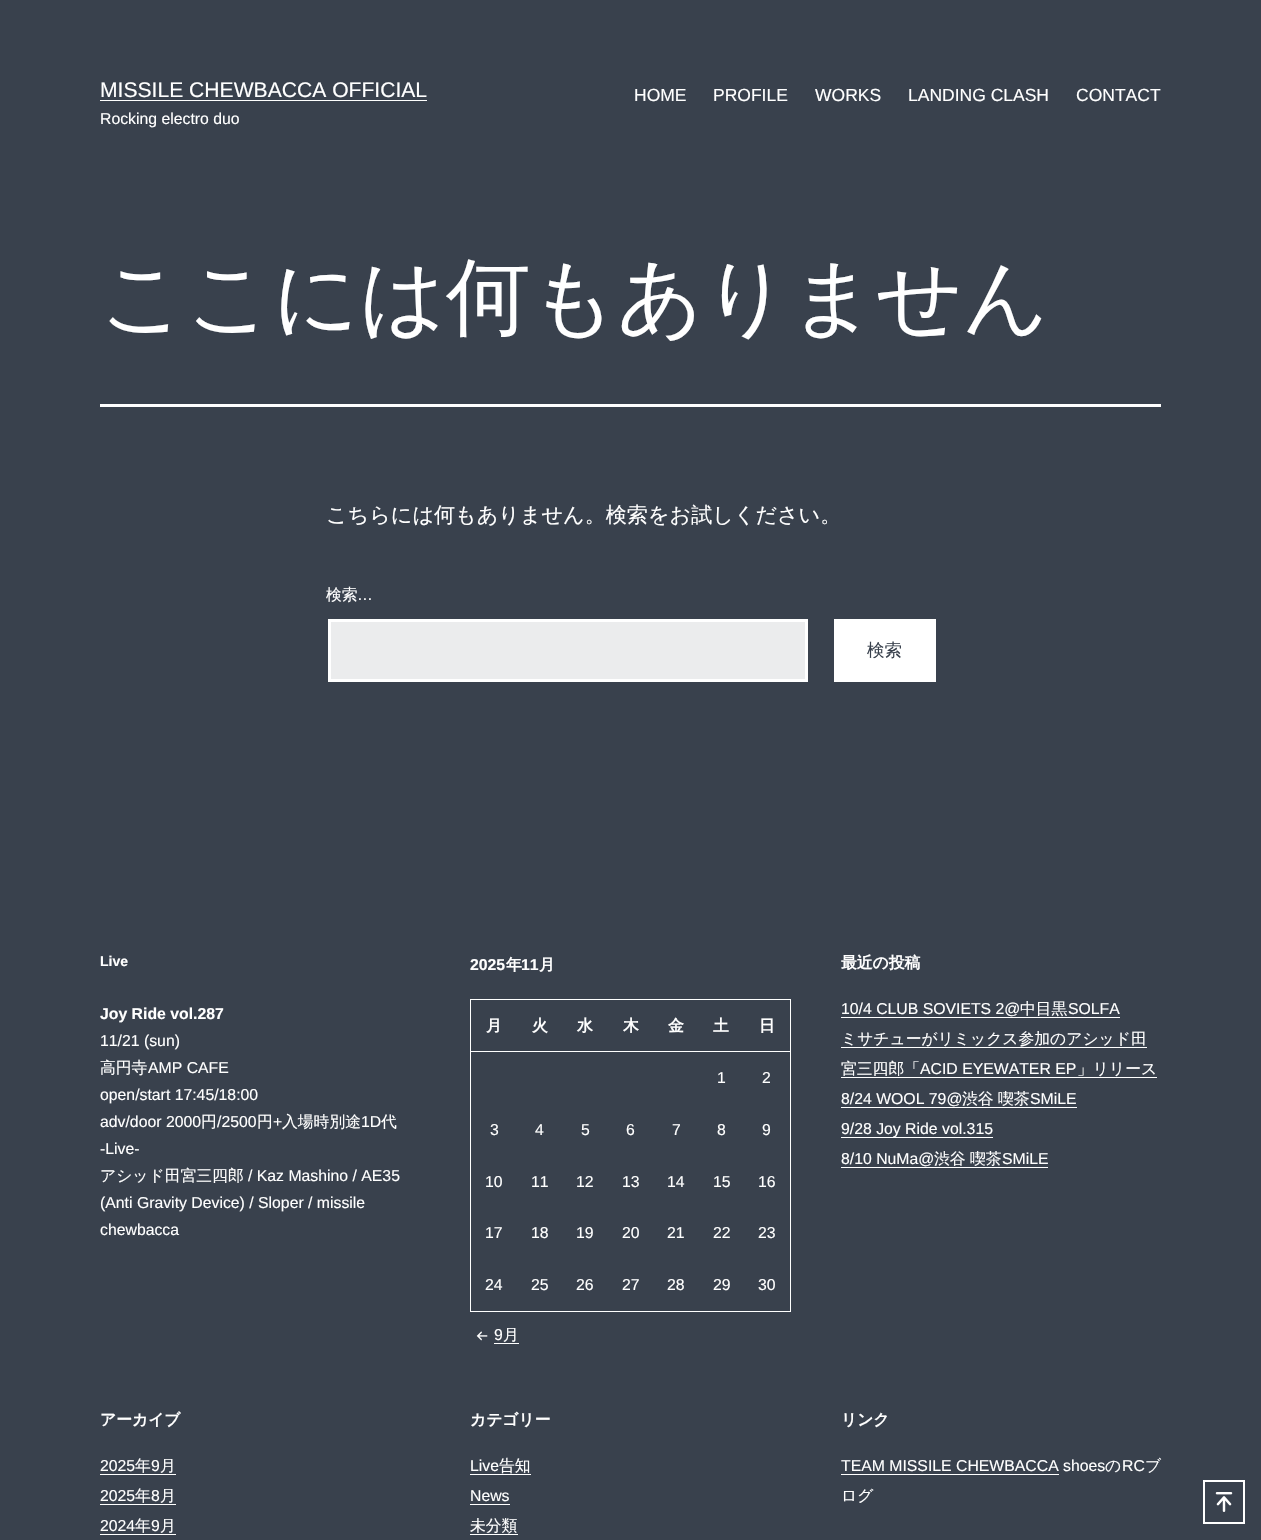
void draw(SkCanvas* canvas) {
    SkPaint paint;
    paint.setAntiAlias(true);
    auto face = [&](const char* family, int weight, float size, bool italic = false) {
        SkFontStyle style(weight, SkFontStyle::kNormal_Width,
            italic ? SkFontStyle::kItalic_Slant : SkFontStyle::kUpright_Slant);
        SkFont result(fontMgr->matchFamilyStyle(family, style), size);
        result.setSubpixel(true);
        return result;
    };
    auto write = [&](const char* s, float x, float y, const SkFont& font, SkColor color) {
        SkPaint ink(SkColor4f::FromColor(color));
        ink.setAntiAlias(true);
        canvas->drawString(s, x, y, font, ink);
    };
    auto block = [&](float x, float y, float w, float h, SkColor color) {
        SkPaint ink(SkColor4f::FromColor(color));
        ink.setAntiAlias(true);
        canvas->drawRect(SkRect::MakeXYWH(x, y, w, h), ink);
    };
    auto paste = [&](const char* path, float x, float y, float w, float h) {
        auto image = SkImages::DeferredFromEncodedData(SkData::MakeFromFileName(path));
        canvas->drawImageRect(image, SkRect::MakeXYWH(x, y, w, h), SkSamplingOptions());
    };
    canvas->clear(SkColorSetRGB(57, 65, 77));
    auto kFont1 = face("Liberation Sans", 400, 21.1f);
    write("MISSILE CHEWBACCA OFFICIAL", 100, 97, kFont1, SK_ColorWHITE);
    block(100, 100, 327, 1, SK_ColorWHITE);
    auto kFont2 = face("Liberation Sans", 400, 15.8f);
    write("Rocking electro duo", 100, 124, kFont2, SK_ColorWHITE);
    auto kFont3 = face("Liberation Sans", 400, 17.5f);
    write("HOME", 634, 101, kFont3, SK_ColorWHITE);
    write("PROFILE", 713, 101, kFont3, SK_ColorWHITE);
    write("WORKS", 815, 101, kFont3, SK_ColorWHITE);
    write("LANDING CLASH", 908, 101, kFont3, SK_ColorWHITE);
    write("CONTACT", 1076, 101, kFont3, SK_ColorWHITE);
    block(100, 404, 1061, 3, SK_ColorWHITE);
    auto kFont4 = face("WenQuanYi Zen Hei", 500, 84.5f);
    write("ここには何もありません", 100, 326, kFont4, SK_ColorWHITE);
    auto kFont5 = face("WenQuanYi Zen Hei", 500, 21.1f);
    write("こちらには何もありません。検索をお試しください。", 326, 522, kFont5, SK_ColorWHITE);
    auto kFont6 = face("WenQuanYi Zen Hei", 500, 15.8f);
    write("検索", 326, 600, kFont6, SK_ColorWHITE);
    write("…", 357, 600, kFont2, SK_ColorWHITE);
    paint.setColor(SkColorSetRGB(235, 236, 237));
    canvas->drawRect(SkRect::MakeXYWH(329.5f, 620.5f, 477, 60), paint);
    paint.setStyle(SkPaint::kStroke_Style);
    paint.setStrokeWidth(3);
    paint.setColor(SK_ColorWHITE);
    canvas->drawRect(SkRect::MakeXYWH(329.5f, 620.5f, 477, 60), paint);
    block(834, 619, 102, 63, SK_ColorWHITE);
    auto kFont7 = face("WenQuanYi Zen Hei", 500, 17.5f);
    write("検索", 867, 656, kFont7, SkColorSetRGB(57, 65, 77));
    auto kFont8 = face("Liberation Sans", 700, 14);
    write("Live", 100, 966, kFont8, SK_ColorWHITE);
    auto kFont9 = face("Liberation Sans", 700, 15.8f);
    write("Joy Ride vol.287", 100, 1019, kFont9, SK_ColorWHITE);
    write("11/21 (sun)", 100, 1046, kFont2, SK_ColorWHITE);
    write("高円寺", 100, 1073, kFont6, SK_ColorWHITE);
    write("AMP CAFE", 148, 1073, kFont2, SK_ColorWHITE);
    write("open/start 17:45/18:00", 100, 1100, kFont2, SK_ColorWHITE);
    write("adv/door 2000", 100, 1127, kFont2, SK_ColorWHITE);
    write("円", 201, 1127, kFont6, SK_ColorWHITE);
    write("/2500", 217, 1127, kFont2, SK_ColorWHITE);
    write("円", 257, 1127, kFont6, SK_ColorWHITE);
    write("+", 273, 1127, kFont2, SK_ColorWHITE);
    write("入場時別途", 282, 1127, kFont6, SK_ColorWHITE);
    write("1D", 361, 1127, kFont2, SK_ColorWHITE);
    write("代", 381, 1127, kFont6, SK_ColorWHITE);
    write("-Live-", 100, 1154, kFont2, SK_ColorWHITE);
    write("アシッド田宮三四郎", 100, 1181, kFont6, SK_ColorWHITE);
    write("/ Kaz Mashino / AE35", 248, 1181, kFont2, SK_ColorWHITE);
    write("(Anti Gravity Device) / Sloper / missile", 100, 1208, kFont2, SK_ColorWHITE);
    write("chewbacca", 100, 1235, kFont2, SK_ColorWHITE);
    write("2025", 470, 970, kFont9, SK_ColorWHITE);
    auto kFont10 = face("WenQuanYi Zen Hei", 700, 15.8f);
    write("年", 506, 970, kFont10, SK_ColorWHITE);
    write("11", 521, 970, kFont9, SK_ColorWHITE);
    write("月", 539, 970, kFont10, SK_ColorWHITE);
    block(470, 999, 321, 1, SK_ColorWHITE);
    block(470, 1051, 321, 1, SK_ColorWHITE);
    block(790, 1051, 1, 261, SK_ColorWHITE);
    block(790, 999, 1, 53, SK_ColorWHITE);
    block(470, 1311, 321, 1, SK_ColorWHITE);
    block(470, 1051, 1, 261, SK_ColorWHITE);
    block(470, 999, 1, 53, SK_ColorWHITE);
    write("月", 486, 1031, kFont10, SK_ColorWHITE);
    write("火", 532, 1031, kFont10, SK_ColorWHITE);
    write("水", 577, 1031, kFont10, SK_ColorWHITE);
    write("木", 623, 1031, kFont10, SK_ColorWHITE);
    write("金", 668, 1031, kFont10, SK_ColorWHITE);
    write("土", 713, 1031, kFont10, SK_ColorWHITE);
    write("日", 759, 1031, kFont10, SK_ColorWHITE);
    write("1", 717, 1083, kFont2, SK_ColorWHITE);
    write("2", 762, 1083, kFont2, SK_ColorWHITE);
    write("3", 490, 1135, kFont2, SK_ColorWHITE);
    write("4", 535, 1135, kFont2, SK_ColorWHITE);
    write("5", 581, 1135, kFont2, SK_ColorWHITE);
    write("6", 626, 1135, kFont2, SK_ColorWHITE);
    write("7", 672, 1135, kFont2, SK_ColorWHITE);
    write("8", 717, 1135, kFont2, SK_ColorWHITE);
    write("9", 762, 1135, kFont2, SK_ColorWHITE);
    write("10", 485, 1187, kFont2, SK_ColorWHITE);
    write("11", 531, 1187, kFont2, SK_ColorWHITE);
    write("12", 576, 1187, kFont2, SK_ColorWHITE);
    write("13", 622, 1187, kFont2, SK_ColorWHITE);
    write("14", 667, 1187, kFont2, SK_ColorWHITE);
    write("15", 713, 1187, kFont2, SK_ColorWHITE);
    write("16", 758, 1187, kFont2, SK_ColorWHITE);
    write("17", 485, 1238, kFont2, SK_ColorWHITE);
    write("18", 531, 1238, kFont2, SK_ColorWHITE);
    write("19", 576, 1238, kFont2, SK_ColorWHITE);
    write("20", 622, 1238, kFont2, SK_ColorWHITE);
    write("21", 667, 1238, kFont2, SK_ColorWHITE);
    write("22", 713, 1238, kFont2, SK_ColorWHITE);
    write("23", 758, 1238, kFont2, SK_ColorWHITE);
    write("24", 485, 1290, kFont2, SK_ColorWHITE);
    write("25", 531, 1290, kFont2, SK_ColorWHITE);
    write("26", 576, 1290, kFont2, SK_ColorWHITE);
    write("27", 622, 1290, kFont2, SK_ColorWHITE);
    write("28", 667, 1290, kFont2, SK_ColorWHITE);
    write("29", 713, 1290, kFont2, SK_ColorWHITE);
    write("30", 758, 1290, kFont2, SK_ColorWHITE);
    paste("pic1.png", 476, 1331, 12, 10);
    write("9", 494, 1340, kFont2, SK_ColorWHITE);
    block(494, 1343, 25, 1, SK_ColorWHITE);
    write("月", 503, 1340, kFont6, SK_ColorWHITE);
    write("最近の投稿", 841, 968, kFont10, SK_ColorWHITE);
    write("10/4 CLUB SOVIETS 2@", 841, 1014, kFont2, SK_ColorWHITE);
    block(841, 1017, 279, 1, SK_ColorWHITE);
    write("中目黒", 1020, 1014, kFont6, SK_ColorWHITE);
    write("SOLFA", 1068, 1014, kFont2, SK_ColorWHITE);
    write("ミサチューがリミックス参加のアシッド田", 841, 1044, kFont6, SK_ColorWHITE);
    block(841, 1047, 306, 1, SK_ColorWHITE);
    write("宮三四郎「", 841, 1074, kFont6, SK_ColorWHITE);
    write("ACID EYEWATER EP", 920, 1074, kFont2, SK_ColorWHITE);
    write("」リリース", 1077, 1074, kFont6, SK_ColorWHITE);
    block(841, 1077, 316, 1, SK_ColorWHITE);
    write("8/24 WOOL 79@", 841, 1104, kFont2, SK_ColorWHITE);
    block(841, 1107, 236, 1, SK_ColorWHITE);
    write("渋谷", 962, 1104, kFont6, SK_ColorWHITE);
    write("喫茶", 998, 1104, kFont6, SK_ColorWHITE);
    write("SMiLE", 1030, 1104, kFont2, SK_ColorWHITE);
    block(841, 1137, 152, 1, SK_ColorWHITE);
    write("9/28 Joy Ride vol.315", 841, 1134, kFont2, SK_ColorWHITE);
    write("8/10 NuMa@", 841, 1164, kFont2, SK_ColorWHITE);
    block(841, 1167, 207, 1, SK_ColorWHITE);
    write("渋谷", 934, 1164, kFont6, SK_ColorWHITE);
    write("喫茶", 970, 1164, kFont6, SK_ColorWHITE);
    write("SMiLE", 1002, 1164, kFont2, SK_ColorWHITE);
    write("アーカイブ", 100, 1425, kFont10, SK_ColorWHITE);
    write("2025", 100, 1471, kFont2, SK_ColorWHITE);
    block(100, 1474, 76, 1, SK_ColorWHITE);
    write("年", 135, 1471, kFont6, SK_ColorWHITE);
    write("9", 151, 1471, kFont2, SK_ColorWHITE);
    write("月", 160, 1471, kFont6, SK_ColorWHITE);
    write("2025", 100, 1501, kFont2, SK_ColorWHITE);
    block(100, 1504, 76, 1, SK_ColorWHITE);
    write("年", 135, 1501, kFont6, SK_ColorWHITE);
    write("8", 151, 1501, kFont2, SK_ColorWHITE);
    write("月", 160, 1501, kFont6, SK_ColorWHITE);
    write("2024", 100, 1531, kFont2, SK_ColorWHITE);
    block(100, 1534, 76, 1, SK_ColorWHITE);
    write("年", 135, 1531, kFont6, SK_ColorWHITE);
    write("9", 151, 1531, kFont2, SK_ColorWHITE);
    write("月", 160, 1531, kFont6, SK_ColorWHITE);
    write("カテゴリー", 470, 1425, kFont10, SK_ColorWHITE);
    write("Live", 470, 1471, kFont2, SK_ColorWHITE);
    block(470, 1474, 61, 1, SK_ColorWHITE);
    write("告知", 499, 1471, kFont6, SK_ColorWHITE);
    write("News", 470, 1501, kFont2, SK_ColorWHITE);
    block(470, 1504, 40, 1, SK_ColorWHITE);
    write("未分類", 470, 1531, kFont6, SK_ColorWHITE);
    block(470, 1534, 48, 1, SK_ColorWHITE);
    write("リンク", 841, 1425, kFont10, SK_ColorWHITE);
    write("TEAM MISSILE CHEWBACCA shoes", 841, 1471, kFont2, SK_ColorWHITE);
    block(841, 1474, 218, 1, SK_ColorWHITE);
    write("の", 1105, 1471, kFont6, SK_ColorWHITE);
    write("RC", 1122, 1471, kFont2, SK_ColorWHITE);
    write("ブ", 1145, 1471, kFont6, SK_ColorWHITE);
    write("ログ", 841, 1501, kFont6, SK_ColorWHITE);
    paint.setStrokeWidth(2);
    canvas->drawRect(SkRect::MakeXYWH(1204, 1481, 40, 42), paint);
    paste("pic2.png", 1215, 1492, 18, 20);
}
